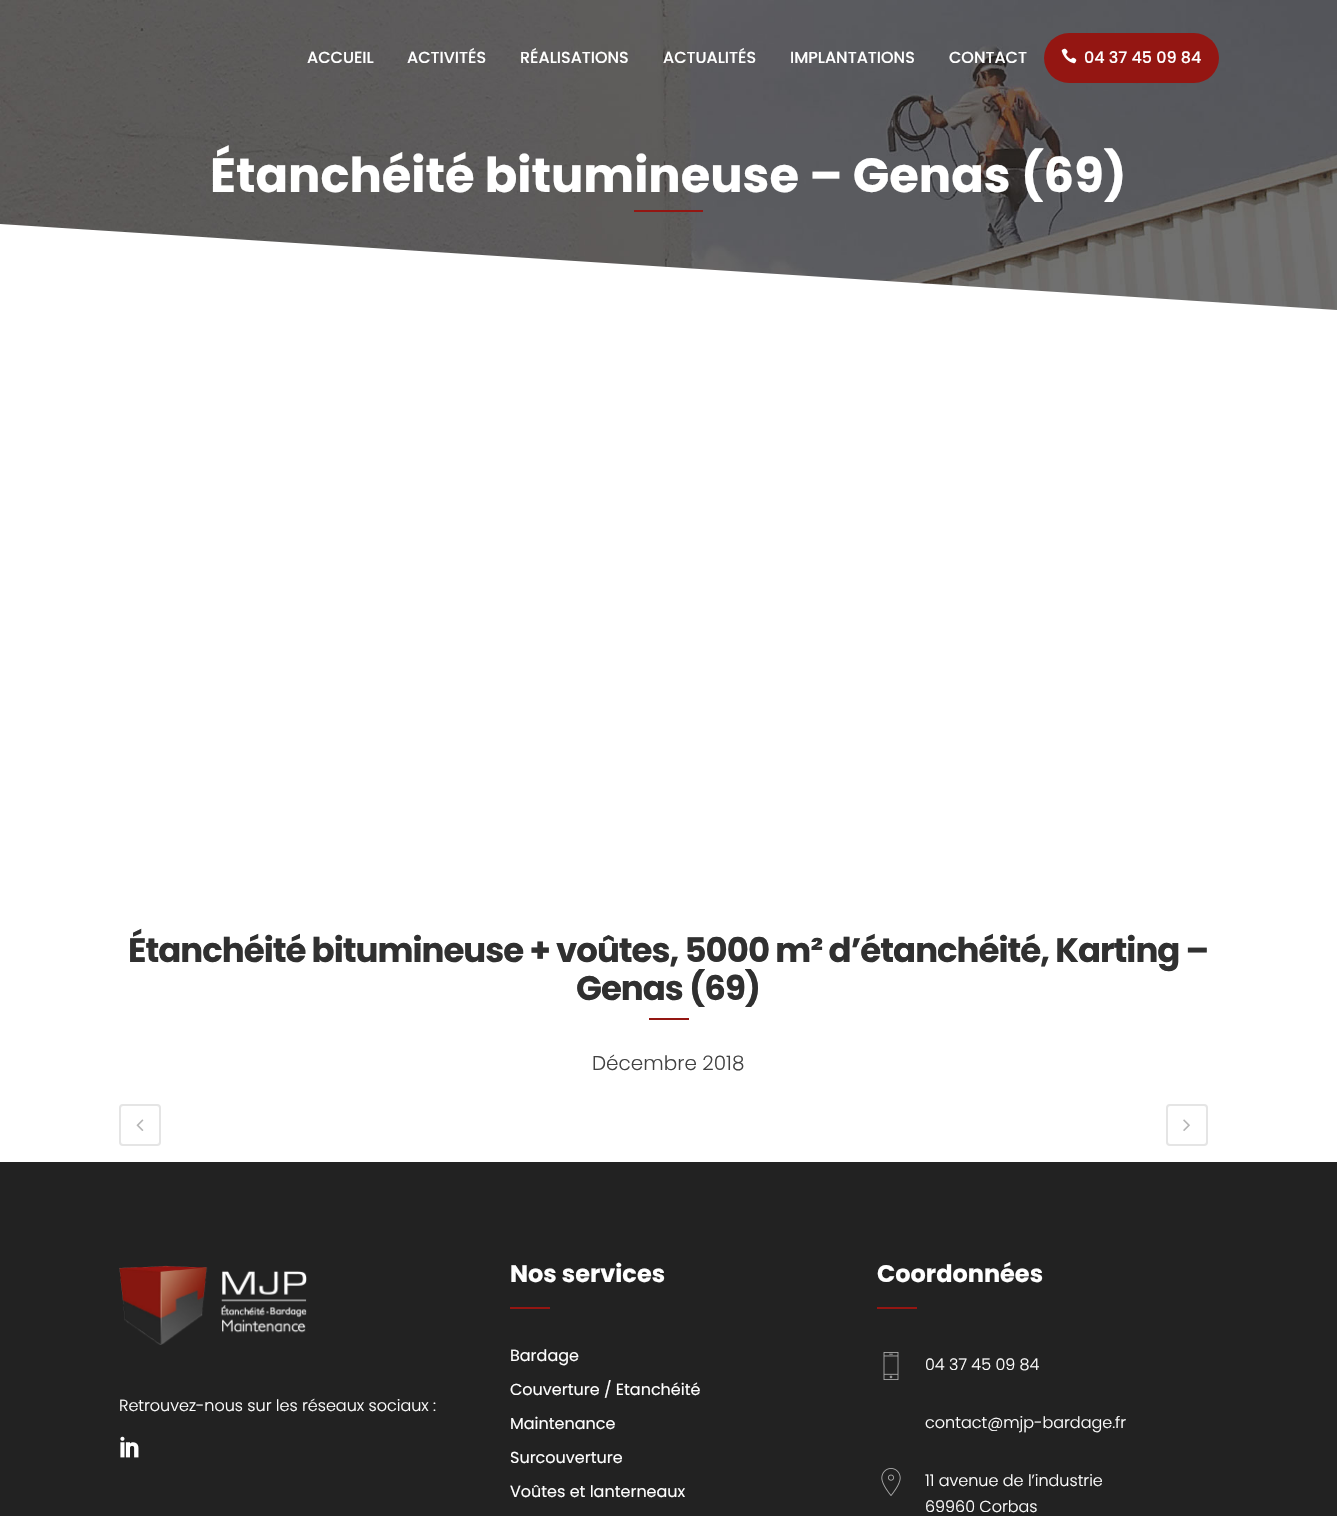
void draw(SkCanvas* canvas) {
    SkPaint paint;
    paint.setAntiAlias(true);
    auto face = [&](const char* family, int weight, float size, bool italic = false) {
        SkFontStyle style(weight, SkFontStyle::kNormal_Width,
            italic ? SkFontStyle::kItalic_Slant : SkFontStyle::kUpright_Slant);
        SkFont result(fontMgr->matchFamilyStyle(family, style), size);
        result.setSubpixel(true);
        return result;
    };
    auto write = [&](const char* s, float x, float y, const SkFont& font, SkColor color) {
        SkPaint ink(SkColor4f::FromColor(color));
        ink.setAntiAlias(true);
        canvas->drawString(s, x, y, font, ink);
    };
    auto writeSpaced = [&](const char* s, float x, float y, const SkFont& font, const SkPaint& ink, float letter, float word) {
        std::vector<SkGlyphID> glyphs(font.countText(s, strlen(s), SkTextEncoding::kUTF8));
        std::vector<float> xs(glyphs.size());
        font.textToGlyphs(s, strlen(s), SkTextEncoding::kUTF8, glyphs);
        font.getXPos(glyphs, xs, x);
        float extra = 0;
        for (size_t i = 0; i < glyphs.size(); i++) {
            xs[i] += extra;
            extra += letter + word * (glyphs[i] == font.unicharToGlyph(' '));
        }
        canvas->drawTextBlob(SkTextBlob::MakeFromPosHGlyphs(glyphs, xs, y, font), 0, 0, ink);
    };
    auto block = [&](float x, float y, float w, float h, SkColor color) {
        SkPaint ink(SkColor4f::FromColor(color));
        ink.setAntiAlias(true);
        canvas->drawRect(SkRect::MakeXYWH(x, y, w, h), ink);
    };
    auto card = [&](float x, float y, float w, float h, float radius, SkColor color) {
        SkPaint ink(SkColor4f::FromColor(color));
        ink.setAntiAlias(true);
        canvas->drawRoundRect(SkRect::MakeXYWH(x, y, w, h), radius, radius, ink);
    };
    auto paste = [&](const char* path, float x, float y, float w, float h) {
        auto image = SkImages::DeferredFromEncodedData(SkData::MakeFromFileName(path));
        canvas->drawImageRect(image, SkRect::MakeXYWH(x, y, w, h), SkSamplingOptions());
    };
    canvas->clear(SK_ColorWHITE);
    paste("pic2.png", 0, 0, 1337, 310);
    auto kFont1 = face("Poppins", 500, 16);
    write("ACCUEIL", 307, 63, kFont1, SK_ColorWHITE);
    write("ACTIVITÉS", 407, 63, kFont1, SK_ColorWHITE);
    write("RÉALISATIONS", 520, 63, kFont1, SK_ColorWHITE);
    write("ACTUALITÉS", 663, 63, kFont1, SK_ColorWHITE);
    write("IMPLANTATIONS", 790, 63, kFont1, SK_ColorWHITE);
    write("CONTACT", 949, 63, kFont1, SK_ColorWHITE);
    card(1044, 33, 175, 50, 25, SkColorSetRGB(148, 22, 18));
    paste("pic1.png", 1061, 48, 16, 16);
    write("04 37 45 09 84", 1084, 63, kFont1, SK_ColorWHITE);
    auto kFont2 = face("Poppins", 700, 48);
    write("Étanchéité bitumineuse – Genas (69)", 210, 192, kFont2, SK_ColorWHITE);
    block(634, 210, 69, 2, SkColorSetRGB(148, 22, 18));
    paint.setColor(SK_ColorWHITE);
    canvas->drawPath(SkPathBuilder().moveTo(0, 224).lineTo(0, 310).lineTo(1337, 310).close().detach(), paint);
    auto kFont3 = face("Poppins", 700, 34);
    paint.setColor(SkColorSetRGB(48, 48, 48));
    writeSpaced("Étanchéité bitumineuse + voûtes, 5000 m² d’étanchéité, Karting –", 128, 962, kFont3, paint, -1, 0);
    writeSpaced("Genas (69)", 576, 1000, kFont3, paint, -1, 0);
    block(649, 1018, 40, 2, SkColorSetRGB(148, 22, 18));
    auto kFont4 = face("Poppins", 300, 20);
    write("Décembre 2018", 592, 1070, kFont4, SkColorSetRGB(66, 66, 66));
    paint.setStyle(SkPaint::kStroke_Style);
    paint.setStrokeWidth(2);
    paint.setColor(SkColorSetRGB(229, 229, 229));
    canvas->drawRoundRect(SkRect::MakeXYWH(120, 1105, 40, 40), 3, 3, paint);
    paste("pic3.png", 136, 1119, 8, 12);
    canvas->drawRoundRect(SkRect::MakeXYWH(1167, 1105, 40, 40), 3, 3, paint);
    paste("pic4.png", 1183, 1119, 7, 12);
    block(0, 1162, 1337, 354, SkColorSetRGB(34, 34, 34));
    paste("pic5.png", 119, 1265, 188, 80);
    auto kFont5 = face("Poppins", 300, 16);
    write("Retrouvez-nous sur les réseaux sociaux :", 119, 1411, kFont5, SK_ColorWHITE);
    paste("pic6.png", 120, 1436, 19, 22);
    auto kFont6 = face("Poppins", 700, 24);
    write("Nos services", 510, 1282, kFont6, SK_ColorWHITE);
    block(510, 1307, 40, 2, SkColorSetRGB(148, 22, 18));
    auto kFont7 = face("Poppins", 400, 16);
    write("Bardage", 510, 1361, kFont7, SK_ColorWHITE);
    write("Couverture / Etanchéité", 510, 1395, kFont7, SK_ColorWHITE);
    write("Maintenance", 510, 1429, kFont7, SK_ColorWHITE);
    write("Surcouverture", 510, 1463, kFont7, SK_ColorWHITE);
    write("Voûtes et lanterneaux", 510, 1497, kFont7, SK_ColorWHITE);
    write("Coordonnées", 877, 1282, kFont6, SK_ColorWHITE);
    block(877, 1307, 40, 2, SkColorSetRGB(148, 22, 18));
    paste("pic7.png", 883, 1352, 16, 28);
    write("04 37 45 09 84", 925, 1370, kFont5, SK_ColorWHITE);
    write("contact@mjp-bardage.fr", 925, 1428, kFont5, SK_ColorWHITE);
    paste("pic8.png", 881, 1468, 20, 28);
    write("11 avenue de l’industrie", 925, 1486, kFont5, SK_ColorWHITE);
    write("69960 Corbas", 925, 1512, kFont5, SK_ColorWHITE);
}
